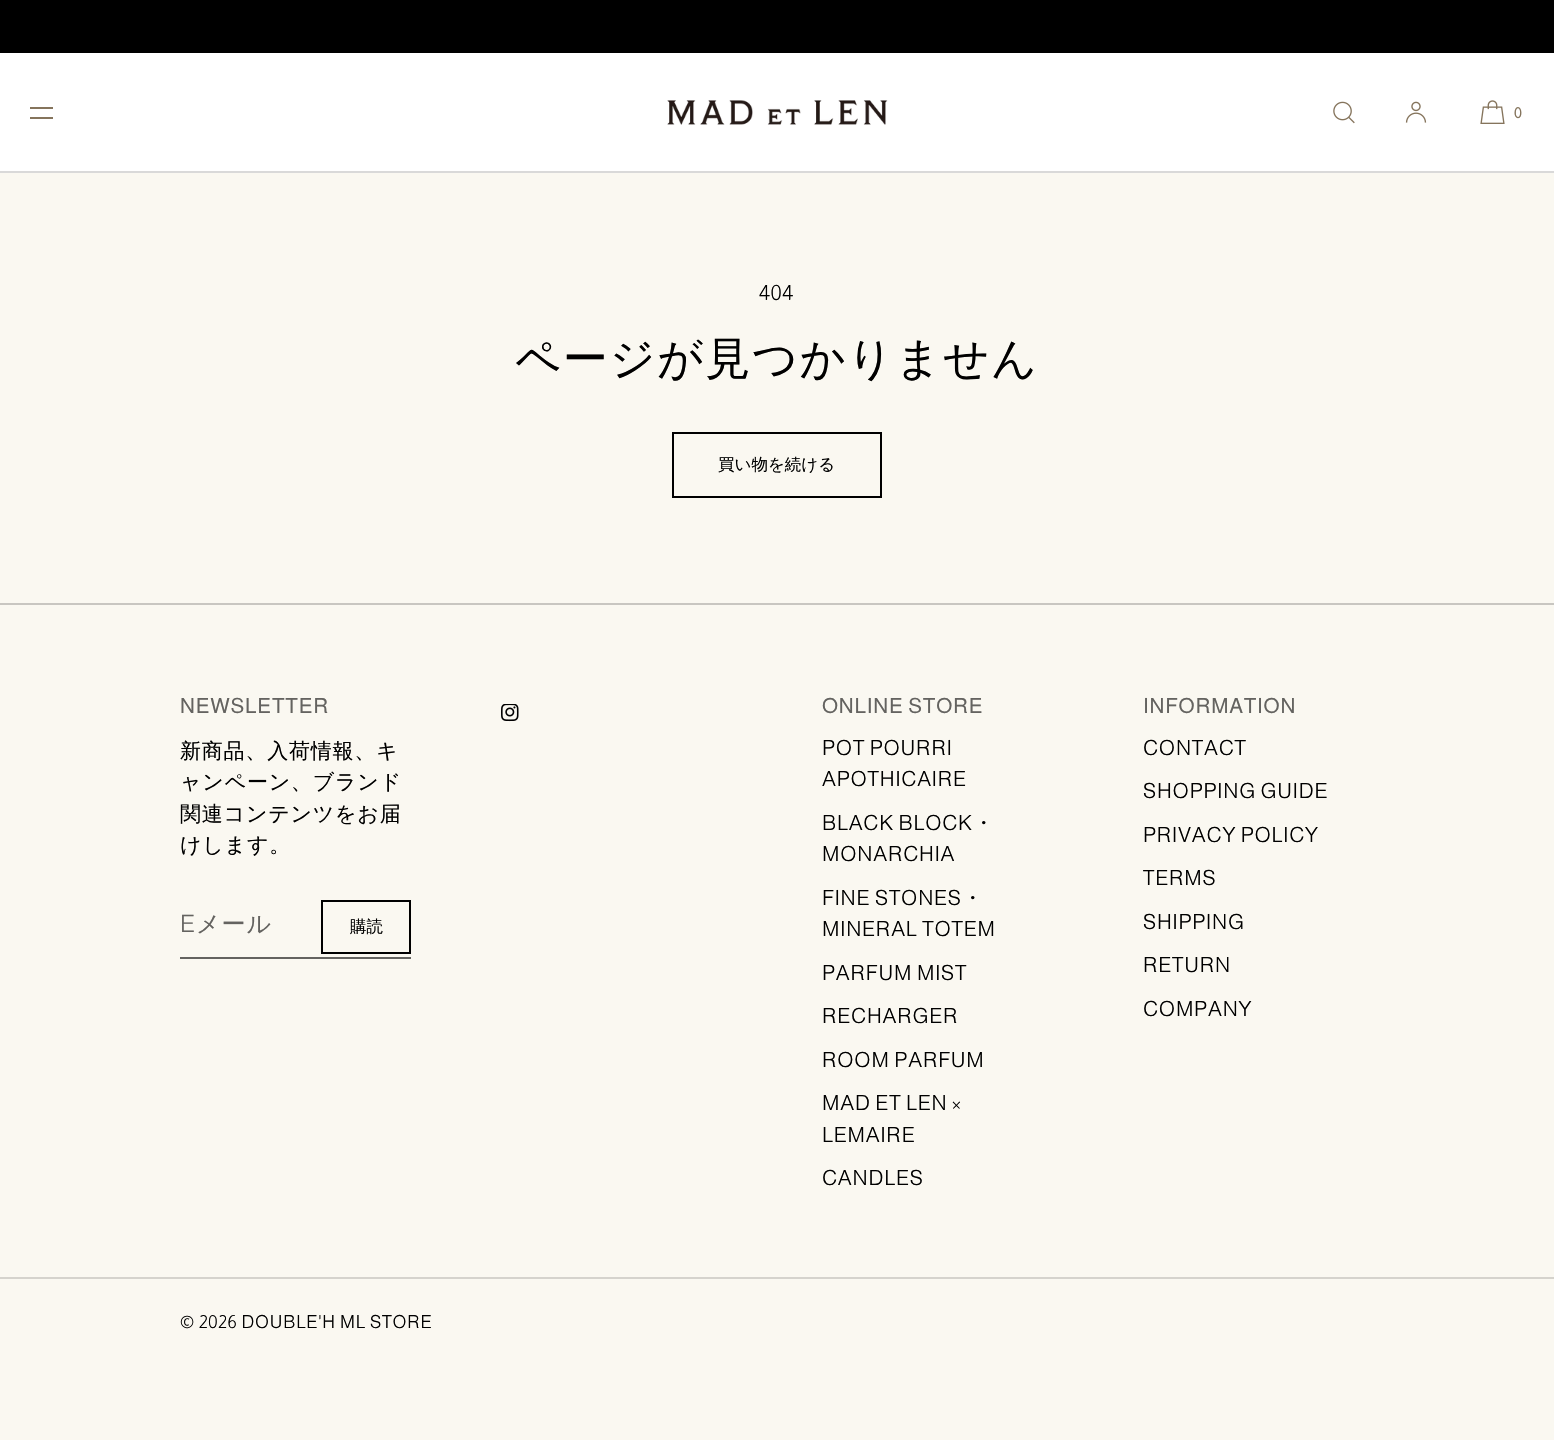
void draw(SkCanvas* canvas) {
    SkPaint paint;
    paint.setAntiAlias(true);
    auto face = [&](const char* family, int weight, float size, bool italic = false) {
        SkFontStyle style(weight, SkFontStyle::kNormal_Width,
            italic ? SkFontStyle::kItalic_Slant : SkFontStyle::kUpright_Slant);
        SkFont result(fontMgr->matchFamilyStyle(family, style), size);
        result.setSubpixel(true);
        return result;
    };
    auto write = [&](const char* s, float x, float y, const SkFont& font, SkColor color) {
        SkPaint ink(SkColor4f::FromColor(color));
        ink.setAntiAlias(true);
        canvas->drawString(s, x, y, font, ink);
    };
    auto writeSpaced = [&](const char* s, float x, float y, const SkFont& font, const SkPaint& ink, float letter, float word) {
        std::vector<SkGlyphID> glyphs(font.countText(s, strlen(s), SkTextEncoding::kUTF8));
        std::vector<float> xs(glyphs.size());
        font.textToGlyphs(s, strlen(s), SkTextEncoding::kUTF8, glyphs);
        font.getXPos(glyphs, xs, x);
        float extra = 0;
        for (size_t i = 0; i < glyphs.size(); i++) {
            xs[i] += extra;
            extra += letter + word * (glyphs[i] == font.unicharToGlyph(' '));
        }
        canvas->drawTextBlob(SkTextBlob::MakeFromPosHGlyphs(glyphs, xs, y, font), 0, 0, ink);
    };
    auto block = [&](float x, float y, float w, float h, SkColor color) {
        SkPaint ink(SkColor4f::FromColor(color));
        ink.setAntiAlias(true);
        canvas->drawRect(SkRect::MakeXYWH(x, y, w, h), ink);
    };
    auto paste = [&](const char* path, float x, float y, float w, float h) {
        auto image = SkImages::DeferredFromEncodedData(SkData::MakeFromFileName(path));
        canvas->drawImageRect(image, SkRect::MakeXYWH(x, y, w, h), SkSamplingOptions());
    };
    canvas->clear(SkColorSetRGB(250, 248, 241));
    block(0, 0, 1554, 53, SK_ColorBLACK);
    block(0, 53, 1554, 118, SK_ColorWHITE);
    block(0, 171, 1554, 2, SkColorSetRGB(217, 217, 217));
    block(30, 107, 23, 2, SkColorSetRGB(133, 116, 92));
    block(30, 117, 23, 2, SkColorSetRGB(133, 116, 92));
    paste("pic1.png", 667, 100, 221, 25);
    paste("pic2.png", 1333, 101, 22, 23);
    paste("pic3.png", 1405, 101, 22, 22);
    paste("pic4.png", 1480, 100, 25, 24);
    auto kFont1 = face("Almarai", 400, 15);
    paint.setColor(SkColorSetRGB(133, 116, 92));
    writeSpaced("0", 1514, 118, kFont1, paint, 0.8f, 0);
    auto kFont2 = face("Almarai", 300, 21);
    paint.setColor(SK_ColorBLACK);
    writeSpaced("404", 759, 300, kFont2, paint, 0.8f, 0);
    auto kFont3 = face("WenQuanYi Zen Hei", 500, 45);
    writeSpaced("ページが見つかりません", 515, 374, kFont3, paint, 1.75f, 0);
    paint.setStyle(SkPaint::kStroke_Style);
    paint.setStrokeWidth(2);
    canvas->drawRect(SkRect::MakeXYWH(673, 433, 208, 64), paint);
    auto kFont4 = face("WenQuanYi Zen Hei", 500, 16.5f);
    write("買い物を続ける", 718, 470, kFont4, SK_ColorBLACK);
    block(0, 603, 1554, 2, SkColorSetRGB(200, 198, 193));
    auto kFont5 = face("Almarai", 400, 21);
    paint.setStyle(SkPaint::kFill_Style);
    paint.setColor(SkColorSetRGB(100, 99, 96));
    writeSpaced("NEWSLETTER", 180, 713, kFont5, paint, 0.8f, 0);
    auto kFont6 = face("WenQuanYi Zen Hei", 500, 21);
    paint.setColor(SK_ColorBLACK);
    writeSpaced("新商品、入荷情報、キ", 180, 758, kFont6, paint, 0.8f, 0);
    writeSpaced("ャンペーン、ブランド", 180, 789, kFont6, paint, 0.8f, 0);
    writeSpaced("関連コンテンツをお届", 180, 821, kFont6, paint, 0.8f, 0);
    writeSpaced("けします。", 180, 852, kFont6, paint, 0.8f, 0);
    block(180, 957, 231, 2, SkColorSetRGB(100, 99, 96));
    auto kFont7 = face("Almarai", 300, 24);
    paint.setColor(SkColorSetRGB(100, 99, 96));
    writeSpaced("E", 180, 932, kFont7, paint, 1, 0);
    auto kFont8 = face("WenQuanYi Zen Hei", 500, 24);
    writeSpaced("メール", 196, 932, kFont8, paint, 1, 0);
    paint.setStyle(SkPaint::kStroke_Style);
    paint.setColor(SK_ColorBLACK);
    canvas->drawRect(SkRect::MakeXYWH(322, 901, 88, 52), paint);
    write("購読", 350, 932, kFont4, SK_ColorBLACK);
    paste("pic5.png", 501, 704, 18, 18);
    paint.setStyle(SkPaint::kFill_Style);
    paint.setColor(SkColorSetRGB(100, 99, 96));
    writeSpaced("ONLINE STORE", 822, 713, kFont5, paint, 0.8f, 0);
    paint.setColor(SK_ColorBLACK);
    writeSpaced("POT POURRI", 822, 755, kFont2, paint, 0.8f, 0);
    writeSpaced("APOTHICAIRE", 822, 786, kFont2, paint, 0.8f, 0);
    writeSpaced("BLACK BLOCK", 822, 830, kFont2, paint, 0.8f, 0);
    writeSpaced("・", 973, 830, kFont6, paint, 0.8f, 0);
    writeSpaced("MONARCHIA", 822, 861, kFont2, paint, 0.8f, 0);
    writeSpaced("FINE STONES", 822, 905, kFont2, paint, 0.8f, 0);
    writeSpaced("・", 962, 905, kFont6, paint, 0.8f, 0);
    writeSpaced("MINERAL TOTEM", 822, 936, kFont2, paint, 0.8f, 0);
    writeSpaced("PARFUM MIST", 822, 980, kFont2, paint, 0.8f, 0);
    writeSpaced("RECHARGER", 822, 1023, kFont2, paint, 0.8f, 0);
    writeSpaced("ROOM PARFUM", 822, 1067, kFont2, paint, 0.8f, 0);
    writeSpaced("MAD ET LEN ×", 822, 1110, kFont2, paint, 0.8f, 0);
    writeSpaced("LEMAIRE", 822, 1142, kFont2, paint, 0.8f, 0);
    writeSpaced("CANDLES", 822, 1185, kFont2, paint, 0.8f, 0);
    paint.setColor(SkColorSetRGB(100, 99, 96));
    writeSpaced("INFORMATION", 1143, 713, kFont5, paint, 0.8f, 0);
    paint.setColor(SK_ColorBLACK);
    writeSpaced("CONTACT", 1143, 755, kFont2, paint, 0.8f, 0);
    writeSpaced("SHOPPING GUIDE", 1143, 798, kFont2, paint, 0.8f, 0);
    writeSpaced("PRIVACY POLICY", 1143, 842, kFont2, paint, 0.8f, 0);
    writeSpaced("TERMS", 1143, 885, kFont2, paint, 0.8f, 0);
    writeSpaced("SHIPPING", 1143, 929, kFont2, paint, 0.8f, 0);
    writeSpaced("RETURN", 1143, 972, kFont2, paint, 0.8f, 0);
    writeSpaced("COMPANY", 1143, 1016, kFont2, paint, 0.8f, 0);
    block(0, 1277, 1554, 2, SkColorSetRGB(213, 211, 205));
    auto kFont9 = face("Almarai", 300, 18);
    writeSpaced("© 2026 DOUBLE'H ML STORE", 180, 1328, kFont9, paint, 0.8f, 0);
}
